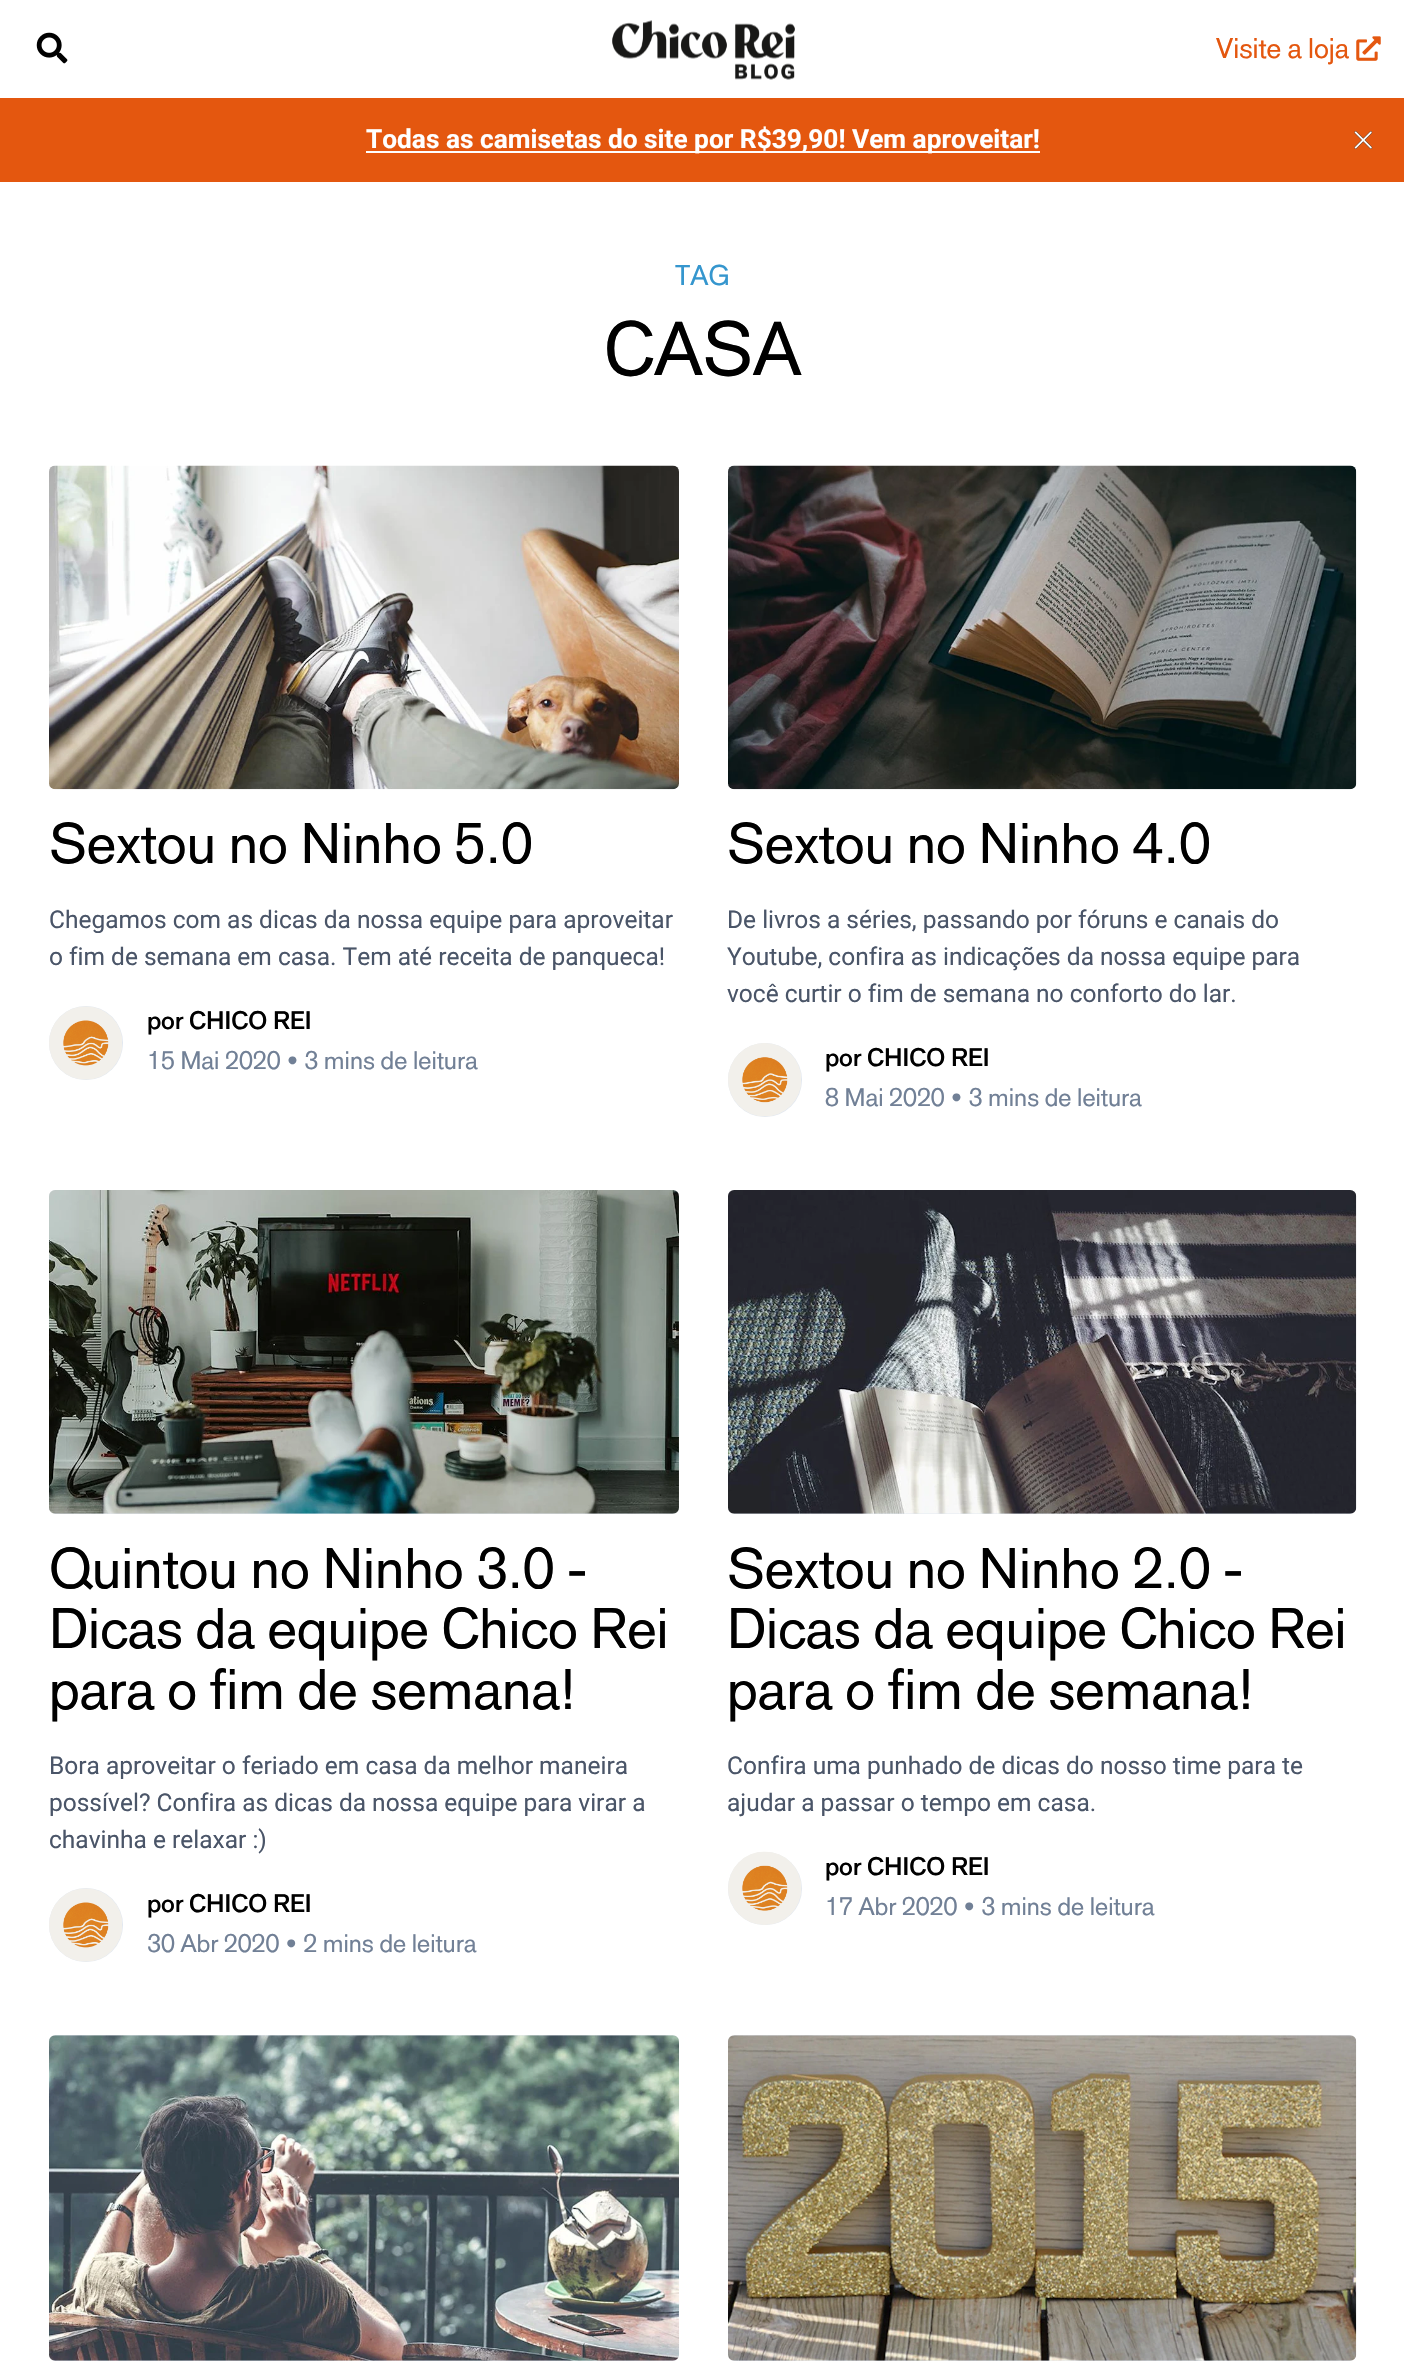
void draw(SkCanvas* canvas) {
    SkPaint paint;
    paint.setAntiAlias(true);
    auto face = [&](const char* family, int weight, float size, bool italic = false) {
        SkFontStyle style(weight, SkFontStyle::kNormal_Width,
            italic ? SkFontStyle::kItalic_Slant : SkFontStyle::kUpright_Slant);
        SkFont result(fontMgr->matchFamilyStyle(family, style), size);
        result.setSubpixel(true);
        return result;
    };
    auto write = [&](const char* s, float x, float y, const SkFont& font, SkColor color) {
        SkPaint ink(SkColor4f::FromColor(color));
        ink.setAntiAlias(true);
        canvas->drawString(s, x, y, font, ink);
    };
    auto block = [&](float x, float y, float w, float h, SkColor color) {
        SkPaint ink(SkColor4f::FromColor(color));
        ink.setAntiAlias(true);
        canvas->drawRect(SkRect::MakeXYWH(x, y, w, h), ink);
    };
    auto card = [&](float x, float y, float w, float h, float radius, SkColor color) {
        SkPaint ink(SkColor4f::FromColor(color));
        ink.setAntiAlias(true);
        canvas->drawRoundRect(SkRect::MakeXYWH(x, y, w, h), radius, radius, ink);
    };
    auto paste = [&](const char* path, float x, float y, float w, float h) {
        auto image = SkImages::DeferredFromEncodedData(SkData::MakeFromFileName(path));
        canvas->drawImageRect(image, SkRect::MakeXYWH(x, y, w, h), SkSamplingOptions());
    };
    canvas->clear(SK_ColorWHITE);
    paste("pic1.png", 36, 32, 32, 32);
    paste("pic2.png", 612, 20, 183, 60);
    auto kFont1 = face("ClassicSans", 400, 27.5f);
    write("Visite a loja", 1216, 58, kFont1, SkColorSetRGB(228, 87, 15));
    paste("pic3.png", 1356, 36, 25, 25);
    block(0, 98, 1404, 84, SkColorSetRGB(228, 87, 15));
    block(366, 151, 674, 2, SK_ColorWHITE);
    auto kFont2 = face("Roboto", 700, 26.25f);
    write("Todas as camisetas do site por R$39,90! Vem aproveitar!", 366, 148, kFont2, SK_ColorWHITE);
    paste("pic4.png", 1354, 131, 19, 18);
    write("TAG", 675, 285, kFont1, SkColorSetRGB(53, 150, 206));
    auto kFont3 = face("ClassicSans", 400, 73.5f);
    write("CASA", 604, 375, kFont3, SK_ColorBLACK);
    paste("pic5.png", 49, 465, 630, 325);
    auto kFont4 = face("ClassicSans", 400, 55.1f);
    write("Sextou no Ninho 5.0", 49, 863, kFont4, SK_ColorBLACK);
    auto kFont5 = face("Roboto", 400, 24.5f);
    write("Chegamos com as dicas da nossa equipe para aproveitar", 49, 928, kFont5, SkColorSetRGB(74, 85, 104));
    write("o fim de semana em casa. Tem até receita de panqueca!", 49, 965, kFont5, SkColorSetRGB(74, 85, 104));
    paint.setColor(SkColorSetRGB(226, 232, 240));
    canvas->drawCircle(86, 1043, 37, paint);
    paste("pic6.png", 49, 1006, 73, 74);
    auto kFont6 = face("ClassicSans", 500, 24.5f);
    write("por CHICO REI", 147, 1029, kFont6, SK_ColorBLACK);
    auto kFont7 = face("ClassicSans", 400, 24.5f);
    write("15 Mai 2020 • 3 mins de leitura", 147, 1069, kFont7, SkColorSetRGB(113, 128, 150));
    paste("pic7.png", 728, 465, 629, 325);
    write("Sextou no Ninho 4.0", 727, 863, kFont4, SK_ColorBLACK);
    write("De livros a séries, passando por fóruns e canais do", 727, 928, kFont5, SkColorSetRGB(74, 85, 104));
    write("Youtube, confira as indicações da nossa equipe para", 727, 965, kFont5, SkColorSetRGB(74, 85, 104));
    write("você curtir o fim de semana no conforto do lar.", 727, 1002, kFont5, SkColorSetRGB(74, 85, 104));
    canvas->drawCircle(765, 1080, 37, paint);
    paste("pic8.png", 728, 1043, 73, 74);
    write("por CHICO REI", 825, 1066, kFont6, SK_ColorBLACK);
    write("8 Mai 2020 • 3 mins de leitura", 825, 1106, kFont7, SkColorSetRGB(113, 128, 150));
    card(49, 1190, 630, 324, 7, SkColorSetRGB(226, 232, 240));
    paste("pic9.png", 49, 1190, 630, 324);
    write("Quintou no Ninho 3.0 -", 49, 1588, kFont4, SK_ColorBLACK);
    write("Dicas da equipe Chico Rei", 49, 1648, kFont4, SK_ColorBLACK);
    write("para o fim de semana!", 49, 1709, kFont4, SK_ColorBLACK);
    write("Bora aproveitar o feriado em casa da melhor maneira", 49, 1774, kFont5, SkColorSetRGB(74, 85, 104));
    write("possível? Confira as dicas da nossa equipe para virar a", 49, 1811, kFont5, SkColorSetRGB(74, 85, 104));
    write("chavinha e relaxar :)", 49, 1848, kFont5, SkColorSetRGB(74, 85, 104));
    canvas->drawCircle(86, 1925, 37, paint);
    paste("pic10.png", 49, 1888, 73, 74);
    write("por CHICO REI", 147, 1912, kFont6, SK_ColorBLACK);
    write("30 Abr 2020 • 2 mins de leitura", 147, 1952, kFont7, SkColorSetRGB(113, 128, 150));
    card(728, 1190, 628, 324, 7, SkColorSetRGB(226, 232, 240));
    paste("pic11.png", 728, 1190, 629, 324);
    write("Sextou no Ninho 2.0 -", 727, 1588, kFont4, SK_ColorBLACK);
    write("Dicas da equipe Chico Rei", 727, 1648, kFont4, SK_ColorBLACK);
    write("para o fim de semana!", 727, 1709, kFont4, SK_ColorBLACK);
    write("Confira uma punhado de dicas do nosso time para te", 727, 1774, kFont5, SkColorSetRGB(74, 85, 104));
    write("ajudar a passar o tempo em casa.", 727, 1811, kFont5, SkColorSetRGB(74, 85, 104));
    card(728, 1852, 74, 73, 36.5f, SkColorSetRGB(226, 232, 240));
    paste("pic12.png", 728, 1851, 74, 74);
    write("por CHICO REI", 825, 1875, kFont6, SK_ColorBLACK);
    write("17 Abr 2020 • 3 mins de leitura", 825, 1915, kFont7, SkColorSetRGB(113, 128, 150));
    card(49, 2035, 630, 326, 7, SkColorSetRGB(226, 232, 240));
    paste("pic13.png", 49, 2035, 630, 326);
    card(728, 2035, 628, 326, 7, SkColorSetRGB(226, 232, 240));
    paste("pic14.png", 728, 2035, 629, 326);
}
